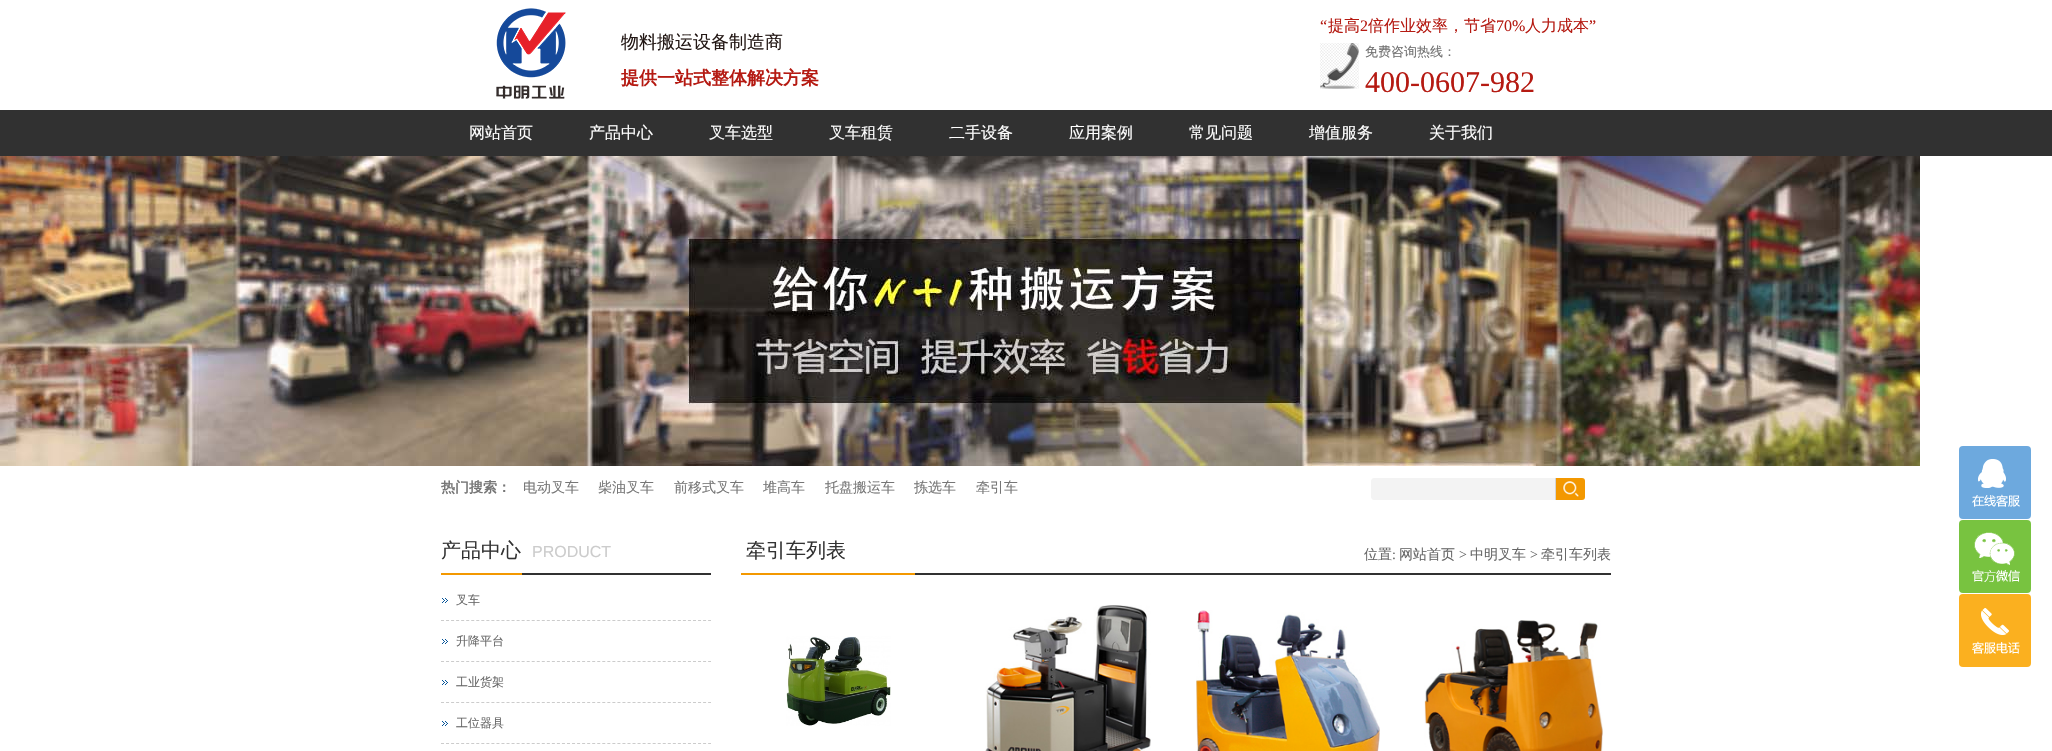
void draw(SkCanvas* canvas) {
    SkPaint paint;
    paint.setAntiAlias(true);
    auto face = [&](const char* family, int weight, float size, bool italic = false) {
        SkFontStyle style(weight, SkFontStyle::kNormal_Width,
            italic ? SkFontStyle::kItalic_Slant : SkFontStyle::kUpright_Slant);
        SkFont result(fontMgr->matchFamilyStyle(family, style), size);
        result.setSubpixel(true);
        return result;
    };
    auto write = [&](const char* s, float x, float y, const SkFont& font, SkColor color) {
        SkPaint ink(SkColor4f::FromColor(color));
        ink.setAntiAlias(true);
        canvas->drawString(s, x, y, font, ink);
    };
    auto block = [&](float x, float y, float w, float h, SkColor color) {
        SkPaint ink(SkColor4f::FromColor(color));
        ink.setAntiAlias(true);
        canvas->drawRect(SkRect::MakeXYWH(x, y, w, h), ink);
    };
    auto card = [&](float x, float y, float w, float h, float radius, SkColor color) {
        SkPaint ink(SkColor4f::FromColor(color));
        ink.setAntiAlias(true);
        canvas->drawRoundRect(SkRect::MakeXYWH(x, y, w, h), radius, radius, ink);
    };
    auto paste = [&](const char* path, float x, float y, float w, float h) {
        auto image = SkImages::DeferredFromEncodedData(SkData::MakeFromFileName(path));
        canvas->drawImageRect(image, SkRect::MakeXYWH(x, y, w, h), SkSamplingOptions());
    };
    canvas->clear(SK_ColorWHITE);
    paste("pic1.png", 496, 8, 70, 91);
    auto kFont1 = face("WenQuanYi Zen Hei", 500, 18);
    write("物料搬运设备制造商", 621, 48, kFont1, SkColorSetRGB(35, 24, 21));
    auto kFont2 = face("WenQuanYi Zen Hei", 700, 18);
    write("提供一站式整体解决方案", 621, 84, kFont2, SkColorSetRGB(181, 26, 18));
    auto kFont3 = face("Liberation Serif", 400, 16);
    write("“", 1320, 31, kFont3, SkColorSetRGB(181, 26, 18));
    auto kFont4 = face("WenQuanYi Zen Hei", 500, 16);
    write("提高", 1328, 31, kFont4, SkColorSetRGB(181, 26, 18));
    write("2", 1360, 31, kFont3, SkColorSetRGB(181, 26, 18));
    write("倍作业效率，节省", 1368, 31, kFont4, SkColorSetRGB(181, 26, 18));
    write("70%", 1496, 31, kFont3, SkColorSetRGB(181, 26, 18));
    write("人力成本", 1525, 31, kFont4, SkColorSetRGB(181, 26, 18));
    write("”", 1589, 31, kFont3, SkColorSetRGB(181, 26, 18));
    paste("pic2.png", 1320, 43, 39, 46);
    auto kFont5 = face("WenQuanYi Zen Hei", 500, 13);
    write("免费咨询热线：", 1365, 56, kFont5, SkColorSetRGB(112, 112, 112));
    auto kFont6 = face("Liberation Serif", 400, 30);
    write("400-0607-982", 1365, 92, kFont6, SkColorSetRGB(181, 26, 18));
    block(0, 110, 2052, 46, SkColorSetRGB(49, 49, 49));
    write("网站首页", 469, 138, kFont4, SK_ColorWHITE);
    write("产品中心", 589, 138, kFont4, SK_ColorWHITE);
    write("叉车选型", 709, 138, kFont4, SK_ColorWHITE);
    write("叉车租赁", 829, 138, kFont4, SK_ColorWHITE);
    write("二手设备", 949, 138, kFont4, SK_ColorWHITE);
    write("应用案例", 1069, 138, kFont4, SK_ColorWHITE);
    write("常见问题", 1189, 138, kFont4, SK_ColorWHITE);
    write("增值服务", 1309, 138, kFont4, SK_ColorWHITE);
    write("关于我们", 1429, 138, kFont4, SK_ColorWHITE);
    paste("pic3.png", 0, 156, 1920, 310);
    auto kFont7 = face("WenQuanYi Zen Hei", 700, 14);
    write("热门搜索：", 441, 492, kFont7, SkColorSetRGB(118, 118, 118));
    auto kFont8 = face("WenQuanYi Zen Hei", 500, 14);
    write("电动叉车", 523, 492, kFont8, SkColorSetRGB(118, 118, 118));
    write("柴油叉车", 598, 492, kFont8, SkColorSetRGB(118, 118, 118));
    write("前移式叉车", 674, 492, kFont8, SkColorSetRGB(118, 118, 118));
    write("堆高车", 763, 492, kFont8, SkColorSetRGB(118, 118, 118));
    write("托盘搬运车", 825, 492, kFont8, SkColorSetRGB(118, 118, 118));
    write("拣选车", 914, 492, kFont8, SkColorSetRGB(118, 118, 118));
    write("牵引车", 976, 492, kFont8, SkColorSetRGB(118, 118, 118));
    paint.setColor(SkColorSetRGB(243, 243, 243));
    canvas->drawPath(SkPathBuilder().moveTo(1374, 478).lineTo(1556, 478).lineTo(1556, 500).lineTo(1374, 500).cubicTo(1372.5f, 500, 1371, 498.5f, 1371, 497).lineTo(1371, 481).cubicTo(1371, 479.5f, 1372.5f, 478, 1374, 478).close().detach(), paint);
    paste("pic4.png", 1556, 478, 29, 22);
    block(1555, 478, 1, 22, SkColorSetRGB(212, 212, 212));
    card(1959, 446, 72, 73, 4, SkColorSetRGB(109, 169, 222));
    paste("pic5.png", 1972, 459, 48, 48);
    card(1959, 520, 72, 73, 4, SkColorSetRGB(120, 195, 64));
    paste("pic6.png", 1972, 532, 48, 50);
    card(1959, 594, 72, 73, 4, SkColorSetRGB(251, 176, 31));
    paste("pic7.png", 1972, 608, 48, 46);
    block(441, 573, 81, 2, SkColorSetRGB(243, 152, 0));
    auto kFont9 = face("WenQuanYi Zen Hei", 500, 20);
    write("产品中心", 441, 557, kFont9, SkColorSetRGB(51, 51, 51));
    block(522, 573, 189, 2, SkColorSetRGB(49, 49, 49));
    auto kFont10 = face("Liberation Sans", 400, 16);
    write("PRODUCT", 532, 557, kFont10, SkColorSetRGB(204, 204, 204));
    paste("pic8.png", 442, 598, 6, 5);
    paint.setStyle(SkPaint::kStroke_Style);
    paint.setStrokeWidth(1);
    paint.setColor(SkColorSetRGB(204, 204, 204));
    paint.setPathEffect(SkDashPathEffect::Make({{3, 2.04f}}, 0));
    canvas->drawPath(SkPathBuilder().moveTo(441, 620.5f).lineTo(711, 620.5f).detach(), paint);
    paint.setPathEffect(nullptr);
    auto kFont11 = face("WenQuanYi Zen Hei", 500, 12);
    write("叉车", 456, 604, kFont11, SkColorSetRGB(102, 102, 102));
    paste("pic8.png", 442, 639, 6, 5);
    paint.setPathEffect(SkDashPathEffect::Make({{3, 2.04f}}, 0));
    canvas->drawPath(SkPathBuilder().moveTo(441, 661.5f).lineTo(711, 661.5f).detach(), paint);
    paint.setPathEffect(nullptr);
    write("升降平台", 456, 645, kFont11, SkColorSetRGB(102, 102, 102));
    paste("pic8.png", 442, 680, 6, 5);
    paint.setPathEffect(SkDashPathEffect::Make({{3, 2.04f}}, 0));
    canvas->drawPath(SkPathBuilder().moveTo(441, 702.5f).lineTo(711, 702.5f).detach(), paint);
    paint.setPathEffect(nullptr);
    write("工业货架", 456, 686, kFont11, SkColorSetRGB(102, 102, 102));
    paste("pic8.png", 442, 721, 6, 5);
    paint.setPathEffect(SkDashPathEffect::Make({{3, 2.04f}}, 0));
    canvas->drawPath(SkPathBuilder().moveTo(441, 743.5f).lineTo(711, 743.5f).detach(), paint);
    paint.setPathEffect(nullptr);
    write("工位器具", 456, 727, kFont11, SkColorSetRGB(102, 102, 102));
    block(741, 573, 174, 2, SkColorSetRGB(243, 152, 0));
    write("牵引车列表", 746, 557, kFont9, SkColorSetRGB(51, 51, 51));
    block(915, 573, 696, 2, SkColorSetRGB(49, 49, 49));
    write("位置", 1364, 559, kFont8, SkColorSetRGB(102, 102, 102));
    auto kFont12 = face("Liberation Serif", 400, 14);
    write(":", 1392, 559, kFont12, SkColorSetRGB(102, 102, 102));
    write("网站首页", 1399, 559, kFont8, SkColorSetRGB(102, 102, 102));
    write(">", 1459, 559, kFont12, SkColorSetRGB(102, 102, 102));
    write("中明叉车", 1470, 559, kFont8, SkColorSetRGB(102, 102, 102));
    write(">", 1530, 559, kFont12, SkColorSetRGB(102, 102, 102));
    write("牵引车列表", 1541, 559, kFont8, SkColorSetRGB(102, 102, 102));
    paste("pic9.png", 786, 636, 105, 90);
    paste("pic10.png", 985, 605, 166, 146);
    paste("pic11.png", 1196, 610, 184, 141);
    paste("pic12.png", 1424, 620, 179, 131);
}
